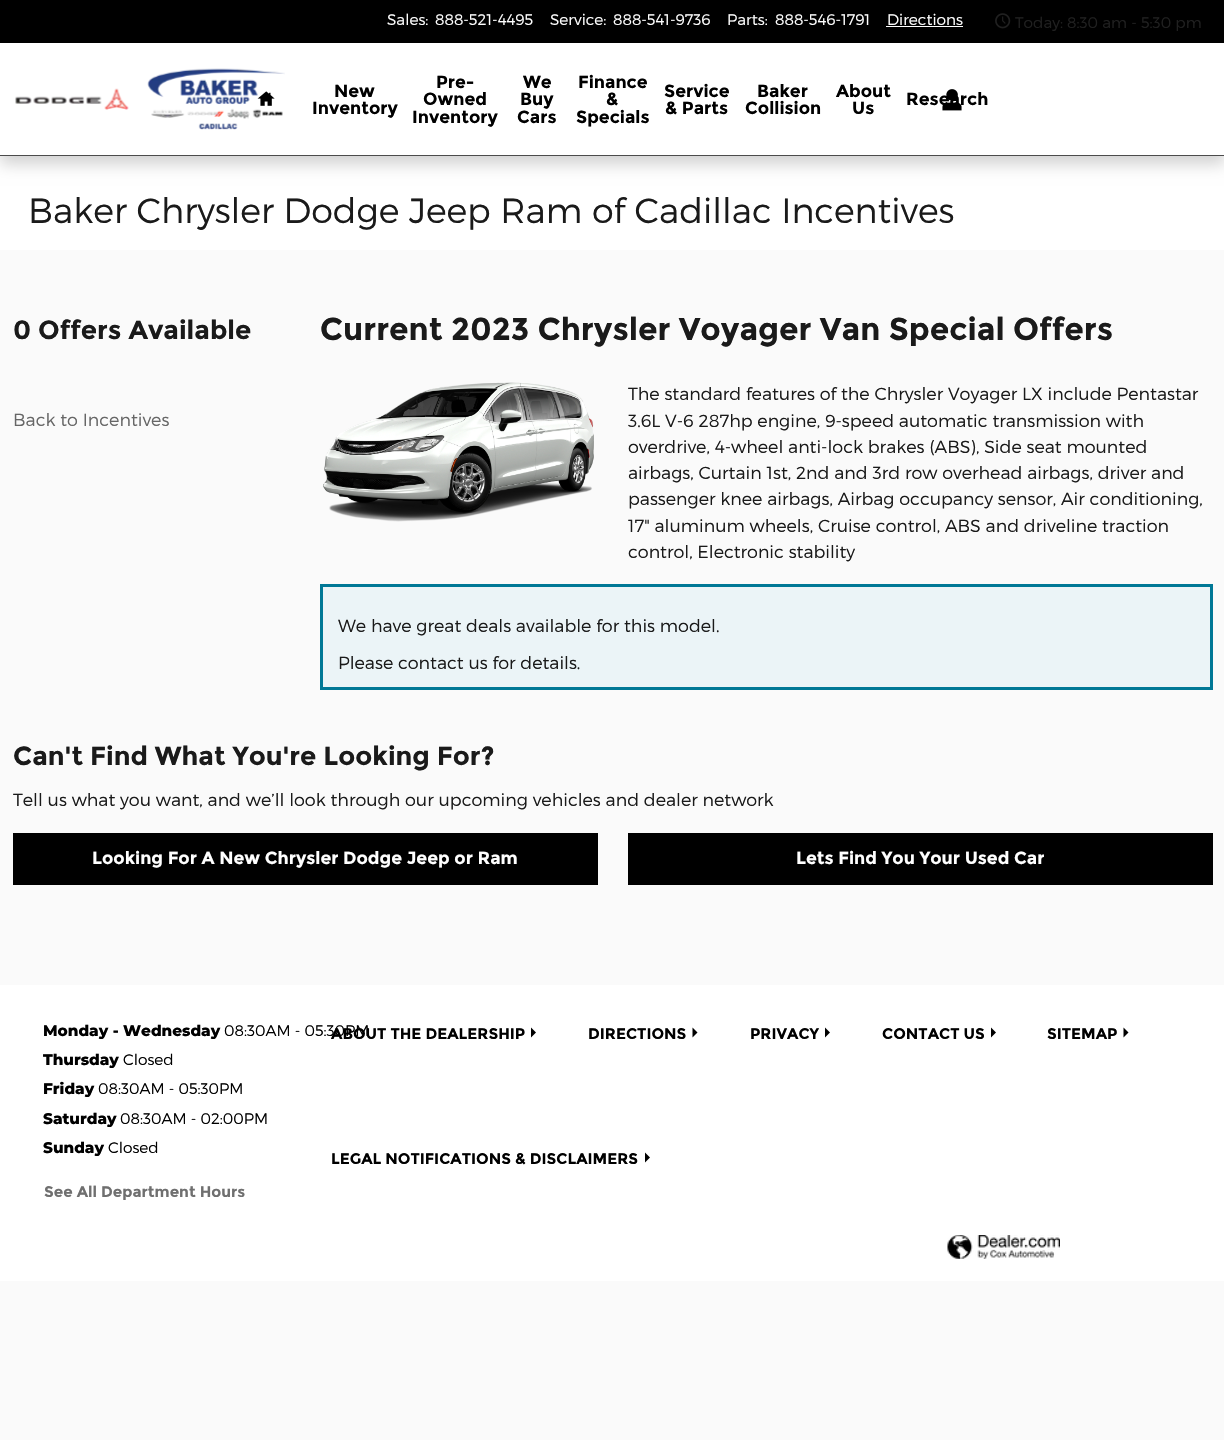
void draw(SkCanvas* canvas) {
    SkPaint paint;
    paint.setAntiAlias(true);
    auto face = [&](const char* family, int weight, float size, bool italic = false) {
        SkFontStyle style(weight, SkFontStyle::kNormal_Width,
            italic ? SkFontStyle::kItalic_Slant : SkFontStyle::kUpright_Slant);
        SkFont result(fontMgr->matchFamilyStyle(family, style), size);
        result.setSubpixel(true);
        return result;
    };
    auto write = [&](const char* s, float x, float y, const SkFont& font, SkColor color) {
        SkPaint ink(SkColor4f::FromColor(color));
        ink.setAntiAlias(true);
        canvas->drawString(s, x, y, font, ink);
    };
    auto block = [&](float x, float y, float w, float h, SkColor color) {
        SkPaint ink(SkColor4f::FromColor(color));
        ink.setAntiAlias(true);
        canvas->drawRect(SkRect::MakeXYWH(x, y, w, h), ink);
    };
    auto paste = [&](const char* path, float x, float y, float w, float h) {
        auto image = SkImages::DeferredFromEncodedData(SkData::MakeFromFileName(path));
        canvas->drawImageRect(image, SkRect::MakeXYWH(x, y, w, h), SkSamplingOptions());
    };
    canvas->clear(SkColorSetRGB(250, 250, 250));
    block(0, 156, 1224, 94, SK_ColorWHITE);
    paint.setColor(SkColorSetARGB(46, 0, 0, 0));
    paint.setMaskFilter(SkMaskFilter::MakeBlur(kNormal_SkBlurStyle, 7.5f));
    canvas->drawRect(SkRect::MakeXYWH(0, 8, 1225, 156), paint);
    paint.setMaskFilter(nullptr);
    block(0, 43, 1224, 112, SK_ColorWHITE);
    block(0, 155, 1224, 1, SkColorSetRGB(75, 75, 75));
    block(0, 0, 1224, 43, SK_ColorBLACK);
    auto kFont1 = face("Montserrat", 300, 15.3f);
    write("Sales:", 387, 25, kFont1, SK_ColorWHITE);
    write("888-521-4495", 435, 25, kFont1, SK_ColorWHITE);
    write("Service:", 550, 25, kFont1, SK_ColorWHITE);
    write("888-541-9736", 613, 25, kFont1, SK_ColorWHITE);
    write("Parts:", 727, 25, kFont1, SK_ColorWHITE);
    write("888-546-1791", 775, 25, kFont1, SK_ColorWHITE);
    write("Directions", 887, 25, kFont1, SK_ColorWHITE);
    block(886, 26, 77, 1, SK_ColorWHITE);
    paste("pic1.png", 995, 13, 16, 16);
    write("Today: 8:30 am - 5:30 pm", 1015, 28, kFont1, SkColorSetRGB(32, 32, 32));
    paste("pic2.png", 15, 88, 114, 22);
    paste("pic3.png", 147, 68, 138, 62);
    paste("pic4.png", 257, 91, 18, 15);
    auto kFont2 = face("Montserrat", 700, 17.5f);
    write("New", 334, 97, kFont2, SK_ColorBLACK);
    write("Inventory", 312, 114, kFont2, SK_ColorBLACK);
    write("Pre-", 436, 88, kFont2, SK_ColorBLACK);
    write("Owned", 423, 105, kFont2, SK_ColorBLACK);
    write("Inventory", 412, 123, kFont2, SK_ColorBLACK);
    write("We", 523, 88, kFont2, SK_ColorBLACK);
    write("Buy", 520, 105, kFont2, SK_ColorBLACK);
    write("Cars", 517, 123, kFont2, SK_ColorBLACK);
    write("Finance", 578, 88, kFont2, SK_ColorBLACK);
    write("&", 606, 105, kFont2, SK_ColorBLACK);
    write("Specials", 576, 123, kFont2, SK_ColorBLACK);
    write("Service", 664, 97, kFont2, SK_ColorBLACK);
    write("& Parts", 665, 114, kFont2, SK_ColorBLACK);
    write("Baker", 757, 97, kFont2, SK_ColorBLACK);
    write("Collision", 745, 114, kFont2, SK_ColorBLACK);
    write("About", 836, 97, kFont2, SK_ColorBLACK);
    write("Us", 852, 114, kFont2, SK_ColorBLACK);
    write("Research", 906, 105, kFont2, SK_ColorBLACK);
    paste("pic5.png", 942, 89, 20, 22);
    auto kFont3 = face("Montserrat", 300, 35);
    write("Baker Chrysler Dodge Jeep Ram of Cadillac Incentives", 28, 223, kFont3, SkColorSetRGB(26, 26, 26));
    auto kFont4 = face("Montserrat", 700, 26.25f);
    write("0 Offers Available", 13, 339, kFont4, SkColorSetRGB(26, 26, 26));
    auto kFont5 = face("Montserrat", 300, 17.5f);
    write("Back to Incentives", 13, 426, kFont5, SkColorSetRGB(102, 102, 102));
    auto kFont6 = face("Montserrat", 700, 31.5f);
    write("Current 2023 Chrysler Voyager Van Special Offers", 320, 340, kFont6, SkColorSetRGB(26, 26, 26));
    paste("pic6.png", 323, 382, 271, 140);
    write("The standard features of the Chrysler Voyager LX include Pentastar", 628, 400, kFont5, SkColorSetRGB(26, 26, 26));
    write("3.6L V-6 287hp engine, 9-speed automatic transmission with", 628, 427, kFont5, SkColorSetRGB(26, 26, 26));
    write("overdrive, 4-wheel anti-lock brakes (ABS), Side seat mounted", 628, 453, kFont5, SkColorSetRGB(26, 26, 26));
    write("airbags, Curtain 1st, 2nd and 3rd row overhead airbags, driver and", 628, 479, kFont5, SkColorSetRGB(26, 26, 26));
    write("passenger knee airbags, Airbag occupancy sensor, Air conditioning,", 628, 505, kFont5, SkColorSetRGB(26, 26, 26));
    write("17\" aluminum wheels, Cruise control, ABS and driveline traction", 628, 532, kFont5, SkColorSetRGB(26, 26, 26));
    write("control, Electronic stability", 628, 558, kFont5, SkColorSetRGB(26, 26, 26));
    paint.setColor(SkColorSetRGB(235, 244, 247));
    canvas->drawRect(SkRect::MakeXYWH(321.5f, 585.5f, 890, 103), paint);
    paint.setStyle(SkPaint::kStroke_Style);
    paint.setStrokeWidth(3);
    paint.setColor(SkColorSetRGB(0, 120, 150));
    canvas->drawRect(SkRect::MakeXYWH(321.5f, 585.5f, 890, 103), paint);
    write("We have great deals available for this model.", 338, 632, kFont5, SkColorSetRGB(26, 26, 26));
    write("Please contact us for details.", 338, 669, kFont5, SkColorSetRGB(26, 26, 26));
    write("Can't Find What You're Looking For?", 13, 765, kFont4, SkColorSetRGB(26, 26, 26));
    write("Tell us what you want, and we’ll look through our upcoming vehicles and dealer network", 13, 806, kFont5, SkColorSetRGB(26, 26, 26));
    block(13, 833, 585, 52, SK_ColorBLACK);
    write("Looking For A New Chrysler Dodge Jeep or Ram", 92, 864, kFont2, SK_ColorWHITE);
    block(628, 833, 585, 52, SK_ColorBLACK);
    write("Lets Find You Your Used Car", 796, 864, kFont2, SK_ColorWHITE);
    block(0, 985, 1224, 296, SK_ColorWHITE);
    auto kFont7 = face("Montserrat", 800, 15.3f);
    write("Monday - Wednesday", 43, 1036, kFont7, SK_ColorBLACK);
    write("08:30AM - 05:30PM", 224, 1036, kFont1, SK_ColorBLACK);
    write("Thursday", 43, 1065, kFont7, SK_ColorBLACK);
    write("Closed", 123, 1065, kFont1, SK_ColorBLACK);
    write("Friday", 43, 1094, kFont7, SK_ColorBLACK);
    write("08:30AM - 05:30PM", 98, 1094, kFont1, SK_ColorBLACK);
    write("Saturday", 43, 1124, kFont7, SK_ColorBLACK);
    write("08:30AM - 02:00PM", 120, 1124, kFont1, SK_ColorBLACK);
    write("Sunday", 43, 1153, kFont7, SK_ColorBLACK);
    write("Closed", 108, 1153, kFont1, SK_ColorBLACK);
    auto kFont8 = face("Montserrat", 700, 15.3f);
    write("See All Department Hours", 44, 1197, kFont8, SkColorSetRGB(111, 111, 111));
    write("ABOUT THE DEALERSHIP", 331, 1039, kFont8, SK_ColorBLACK);
    paint.setStyle(SkPaint::kFill_Style);
    paint.setColor(SK_ColorBLACK);
    canvas->drawPath(SkPathBuilder().moveTo(531, 1027.5f).lineTo(531, 1037.5f).lineTo(536, 1032.5f).close().detach(), paint);
    write("DIRECTIONS", 588, 1039, kFont8, SK_ColorBLACK);
    canvas->drawPath(SkPathBuilder().moveTo(692.5f, 1027.5f).lineTo(692.5f, 1037.5f).lineTo(697.5f, 1032.5f).close().detach(), paint);
    write("PRIVACY", 750, 1039, kFont8, SK_ColorBLACK);
    canvas->drawPath(SkPathBuilder().moveTo(825, 1027.5f).lineTo(825, 1037.5f).lineTo(830, 1032.5f).close().detach(), paint);
    write("CONTACT US", 882, 1039, kFont8, SK_ColorBLACK);
    canvas->drawPath(SkPathBuilder().moveTo(991, 1027.5f).lineTo(991, 1037.5f).lineTo(996, 1032.5f).close().detach(), paint);
    write("SITEMAP", 1047, 1039, kFont8, SK_ColorBLACK);
    canvas->drawPath(SkPathBuilder().moveTo(1123.5f, 1027.5f).lineTo(1123.5f, 1037.5f).lineTo(1128.5f, 1032.5f).close().detach(), paint);
    write("LEGAL NOTIFICATIONS & DISCLAIMERS", 331, 1164, kFont8, SK_ColorBLACK);
    canvas->drawPath(SkPathBuilder().moveTo(645, 1152.5f).lineTo(645, 1162.5f).lineTo(650, 1157.5f).close().detach(), paint);
    paste("pic7.png", 947, 1235, 113, 24);
}
